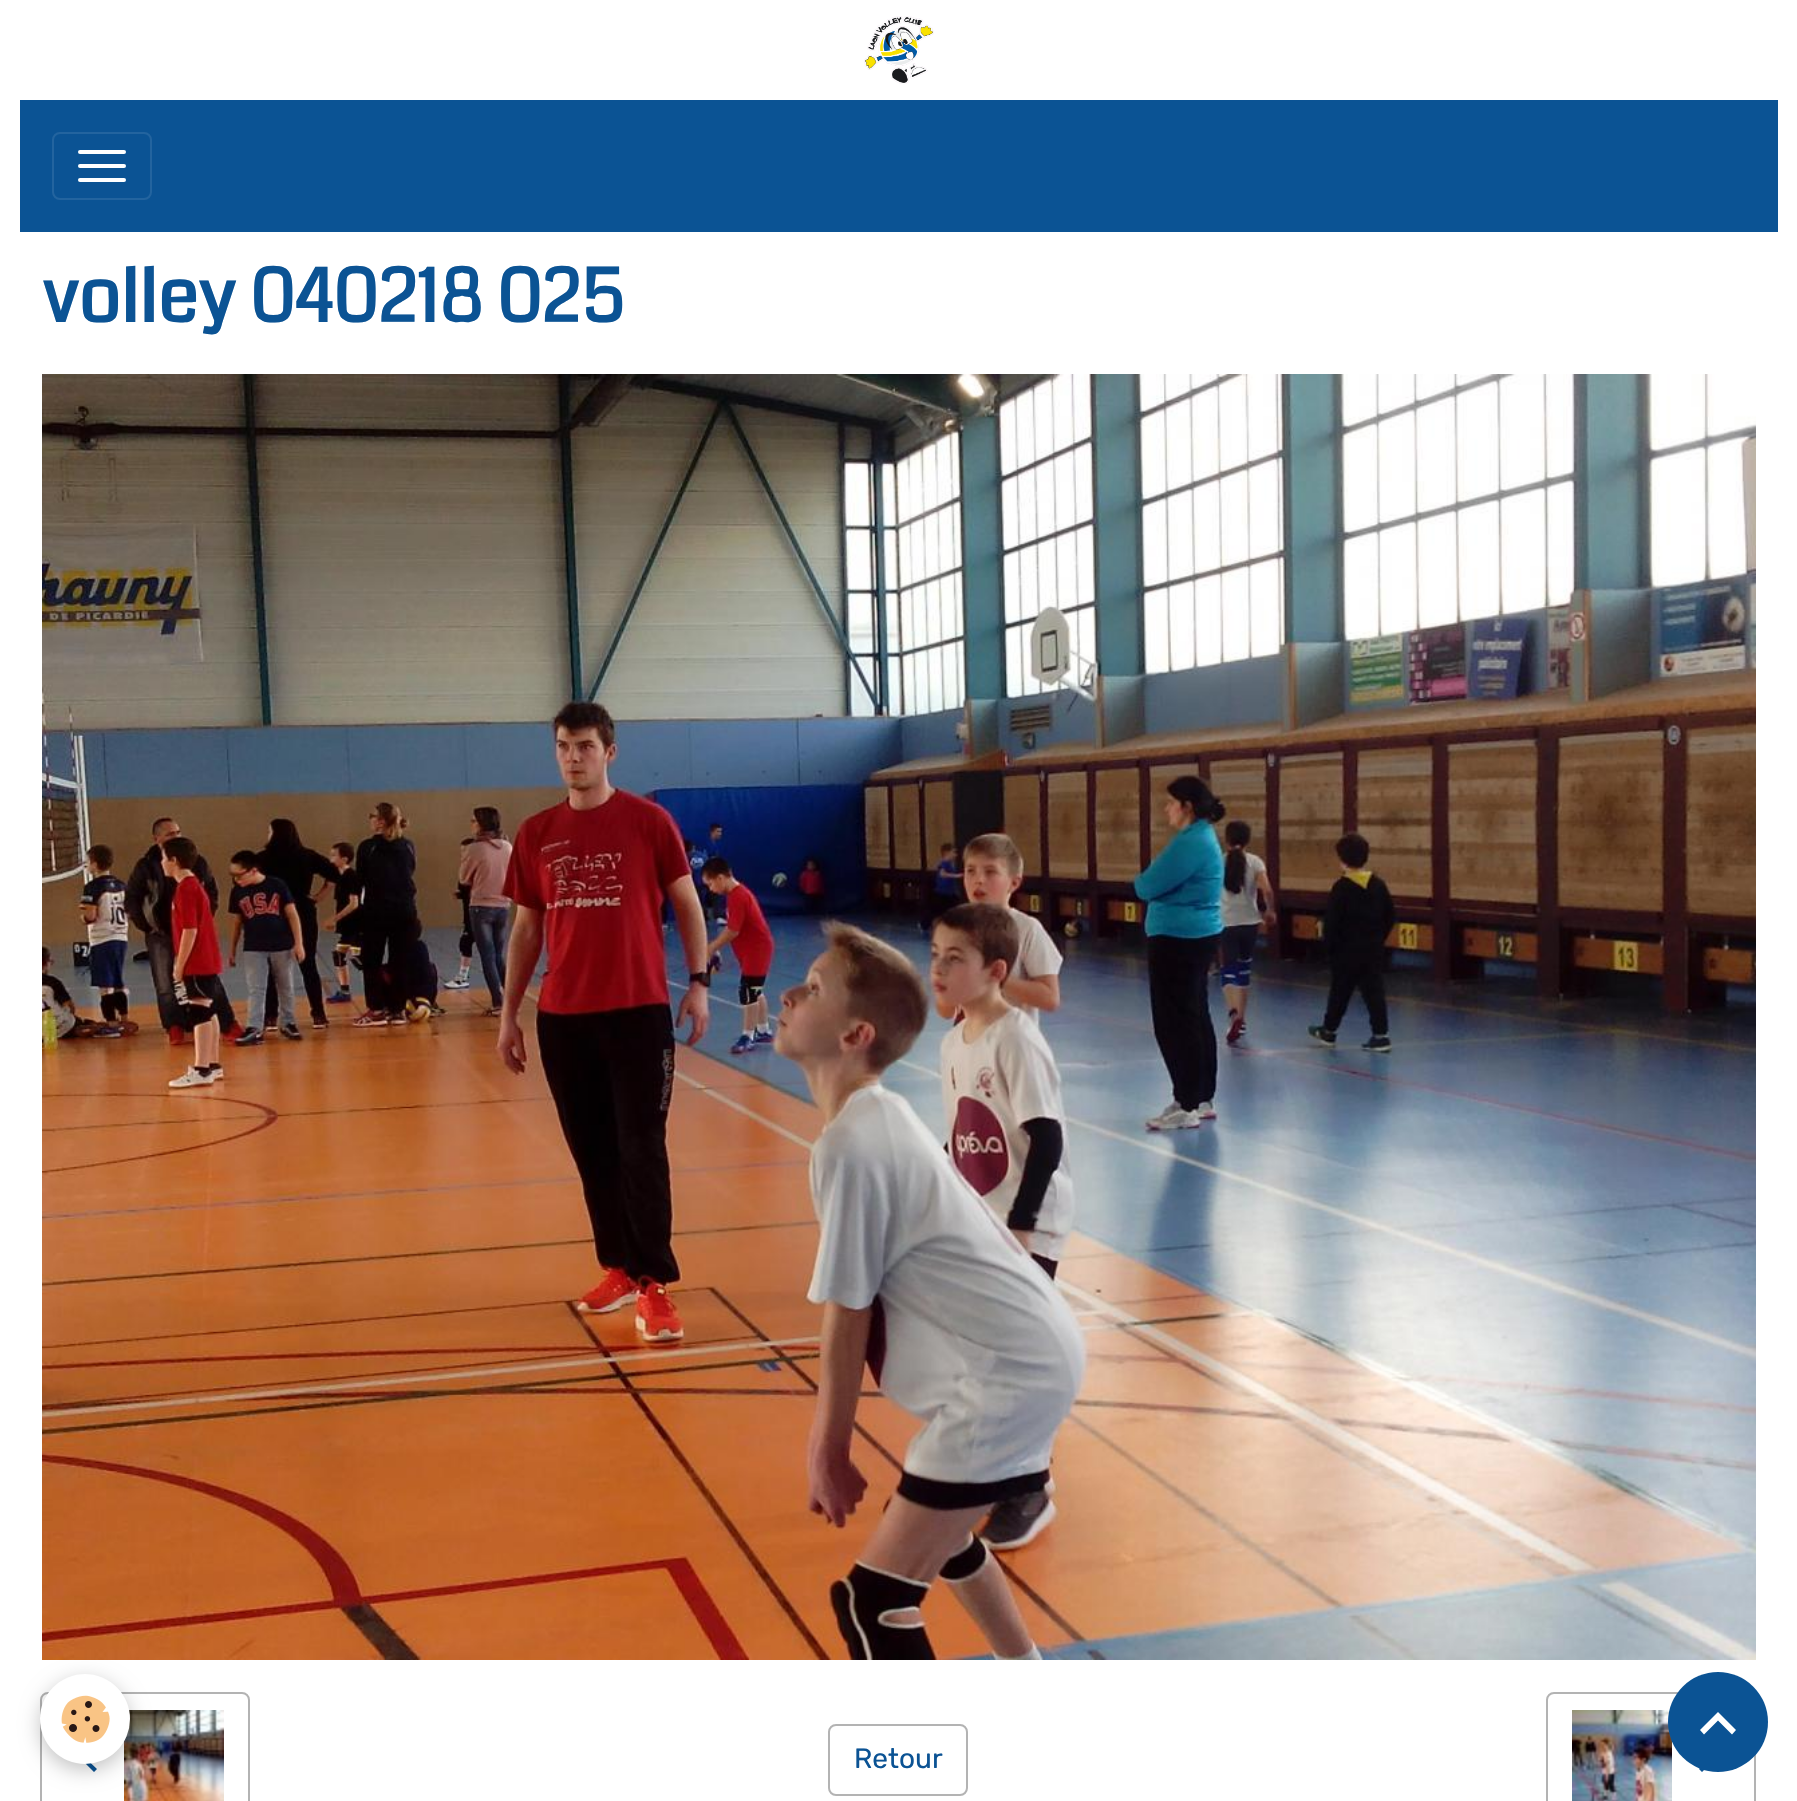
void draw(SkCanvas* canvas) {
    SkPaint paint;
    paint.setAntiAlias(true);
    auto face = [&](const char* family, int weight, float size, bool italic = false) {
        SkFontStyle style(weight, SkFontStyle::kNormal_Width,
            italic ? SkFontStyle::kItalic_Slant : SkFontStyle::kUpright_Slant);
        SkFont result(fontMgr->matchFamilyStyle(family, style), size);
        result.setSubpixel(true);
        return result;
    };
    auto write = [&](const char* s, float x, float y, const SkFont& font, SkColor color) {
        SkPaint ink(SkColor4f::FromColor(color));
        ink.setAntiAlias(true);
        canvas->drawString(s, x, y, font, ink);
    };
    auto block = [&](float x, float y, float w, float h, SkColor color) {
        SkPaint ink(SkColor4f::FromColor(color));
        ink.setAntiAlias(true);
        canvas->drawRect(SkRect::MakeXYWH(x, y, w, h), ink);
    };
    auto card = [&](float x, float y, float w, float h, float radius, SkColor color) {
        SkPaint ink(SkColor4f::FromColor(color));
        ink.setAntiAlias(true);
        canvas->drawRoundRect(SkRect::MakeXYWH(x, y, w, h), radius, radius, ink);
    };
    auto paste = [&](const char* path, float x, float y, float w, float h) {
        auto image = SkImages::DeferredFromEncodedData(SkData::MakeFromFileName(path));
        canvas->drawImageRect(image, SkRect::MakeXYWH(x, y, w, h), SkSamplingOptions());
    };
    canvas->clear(SK_ColorWHITE);
    paste("pic1.png", 864, 16, 70, 68);
    block(20, 100, 1758, 132, SkColorSetRGB(11, 83, 148));
    paint.setStyle(SkPaint::kStroke_Style);
    paint.setStrokeWidth(2);
    paint.setColor(SkColorSetRGB(35, 100, 159));
    canvas->drawRoundRect(SkRect::MakeXYWH(53, 133, 98, 66), 7, 7, paint);
    card(78, 150, 48, 4, 2, SK_ColorWHITE);
    card(78, 164, 48, 4, 2, SK_ColorWHITE);
    card(78, 178, 48, 4, 2, SK_ColorWHITE);
    auto kFont1 = face("Coda", 700, 73.5f);
    write("volley 040218 025", 42, 322, kFont1, SkColorSetRGB(11, 83, 148));
    paste("pic2.png", 42, 374, 1714, 1286);
    paint.setColor(SkColorSetRGB(179, 179, 179));
    canvas->drawRoundRect(SkRect::MakeXYWH(41, 1693, 208, 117), 7, 7, paint);
    paint.setStyle(SkPaint::kFill_Style);
    paint.setColor(SkColorSetRGB(11, 83, 148));
    canvas->drawPath(SkPathBuilder().moveTo(97, 1751).lineTo(87.5f, 1760).lineTo(97, 1769).lineTo(94, 1772).lineTo(82, 1760).lineTo(94, 1748).close().detach(), paint);
    paste("pic3.png", 124, 1710, 100, 91);
    paint.setStyle(SkPaint::kStroke_Style);
    paint.setColor(SkColorSetRGB(179, 179, 179));
    canvas->drawRoundRect(SkRect::MakeXYWH(829, 1725, 138, 70), 7, 7, paint);
    auto kFont2 = face("Rubik", 400, 28);
    write("Retour", 854, 1768, kFont2, SkColorSetRGB(11, 83, 148));
    canvas->drawRoundRect(SkRect::MakeXYWH(1547, 1693, 208, 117), 7, 7, paint);
    paste("pic4.png", 1572, 1710, 100, 91);
    paint.setStyle(SkPaint::kFill_Style);
    paint.setColor(SkColorSetRGB(11, 83, 148));
    canvas->drawPath(SkPathBuilder().moveTo(1702, 1748).lineTo(1714, 1760).lineTo(1702, 1772).lineTo(1699, 1769).lineTo(1708.5f, 1760).lineTo(1699, 1751).close().detach(), paint);
    paint.setColor(SkColorSetARGB(61, 0, 0, 0));
    paint.setMaskFilter(SkMaskFilter::MakeBlur(kNormal_SkBlurStyle, 10));
    canvas->drawRoundRect(SkRect::MakeXYWH(40, 1680, 90, 90), 45, 45, paint);
    paint.setMaskFilter(nullptr);
    paint.setColor(SK_ColorWHITE);
    canvas->drawCircle(85, 1719, 45, paint);
    paste("pic5.png", 61, 1695, 49, 48);
    paint.setColor(SkColorSetRGB(11, 83, 148));
    canvas->drawCircle(1718, 1722, 50, paint);
    paint.setColor(SK_ColorWHITE);
    canvas->drawPath(SkPathBuilder().moveTo(1718, 1712).lineTo(1736, 1730).lineTo(1732, 1734.5f).lineTo(1718, 1720.5f).lineTo(1704, 1734.5f).lineTo(1700, 1730).close().detach(), paint);
}
